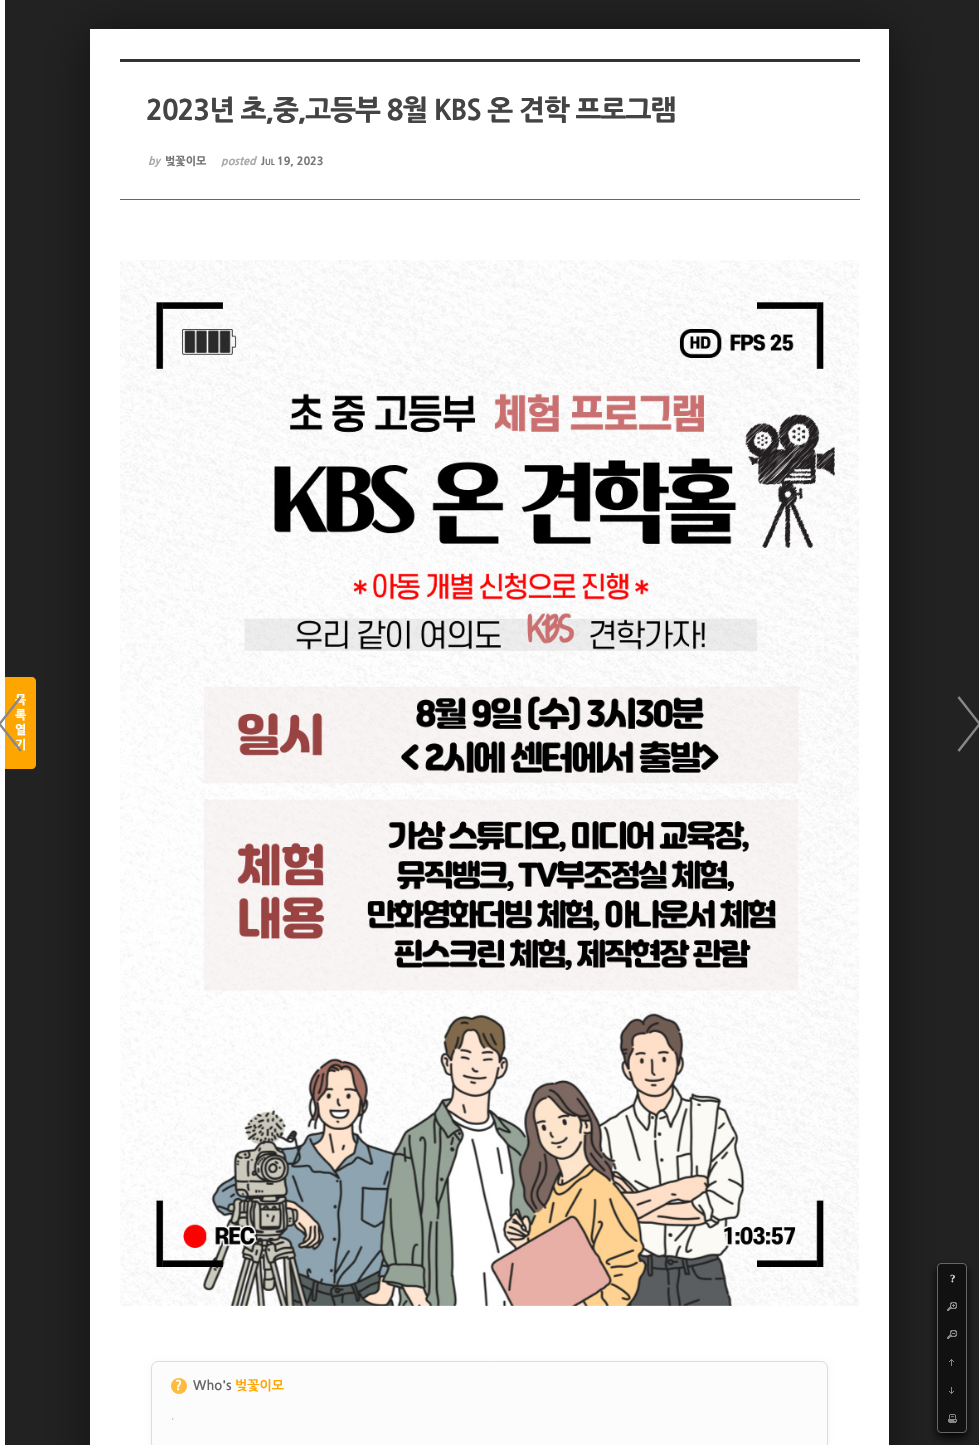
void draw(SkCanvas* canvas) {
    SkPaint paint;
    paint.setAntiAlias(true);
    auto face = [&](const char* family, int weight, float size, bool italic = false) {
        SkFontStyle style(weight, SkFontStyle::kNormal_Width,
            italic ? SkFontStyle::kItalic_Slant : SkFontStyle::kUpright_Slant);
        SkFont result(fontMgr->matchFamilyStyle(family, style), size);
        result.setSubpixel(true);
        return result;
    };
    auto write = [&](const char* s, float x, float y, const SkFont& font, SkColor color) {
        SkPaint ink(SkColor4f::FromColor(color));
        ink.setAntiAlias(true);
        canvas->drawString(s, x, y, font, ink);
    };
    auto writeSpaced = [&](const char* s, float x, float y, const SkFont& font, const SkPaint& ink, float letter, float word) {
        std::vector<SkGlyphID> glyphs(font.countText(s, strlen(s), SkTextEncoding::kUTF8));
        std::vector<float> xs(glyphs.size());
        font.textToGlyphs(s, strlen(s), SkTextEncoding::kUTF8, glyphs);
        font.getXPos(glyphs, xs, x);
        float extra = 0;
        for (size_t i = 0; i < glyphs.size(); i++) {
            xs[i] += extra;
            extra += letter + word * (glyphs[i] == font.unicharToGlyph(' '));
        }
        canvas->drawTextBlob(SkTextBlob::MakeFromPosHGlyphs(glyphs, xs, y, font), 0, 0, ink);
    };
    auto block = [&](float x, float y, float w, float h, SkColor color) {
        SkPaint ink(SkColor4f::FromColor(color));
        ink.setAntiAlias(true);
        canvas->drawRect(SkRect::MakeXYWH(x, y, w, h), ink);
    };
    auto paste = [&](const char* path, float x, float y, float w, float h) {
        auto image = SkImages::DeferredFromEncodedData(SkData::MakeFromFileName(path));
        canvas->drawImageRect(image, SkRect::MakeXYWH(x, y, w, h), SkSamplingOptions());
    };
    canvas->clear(SkColorSetRGB(34, 34, 34));
    paint.setColor(SkColorSetARGB(128, 0, 0, 0));
    paint.setMaskFilter(SkMaskFilter::MakeBlur(kNormal_SkBlurStyle, 24));
    canvas->drawRect(SkRect::MakeXYWH(90, 33, 799, 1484), paint);
    paint.setMaskFilter(nullptr);
    block(90, 29, 799, 1416, SK_ColorWHITE);
    block(120, 59, 740, 3, SkColorSetRGB(51, 51, 51));
    block(120, 199, 740, 1, SkColorSetRGB(102, 102, 102));
    auto kFont1 = face("NanumGothic", 800, 27.6f);
    paint.setColor(SkColorSetRGB(68, 68, 68));
    writeSpaced("2023년 초,중,고등부 8월 KBS 온 견학 프로그램", 146, 120, kFont1, paint, -1, 0);
    auto kFont2 = face("NanumGothic", 800, 11, true);
    write("by", 148, 165, kFont2, SkColorSetRGB(170, 170, 170));
    auto kFont3 = face("NanumGothic", 800, 11);
    write("벚꽃이모", 165, 165, kFont3, SkColorSetRGB(119, 119, 119));
    write("posted", 221, 165, kFont2, SkColorSetRGB(170, 170, 170));
    write("J", 261, 165, kFont3, SkColorSetRGB(119, 119, 119));
    auto kFont4 = face("NanumGothic", 800, 8);
    write("UL", 265, 165, kFont4, SkColorSetRGB(119, 119, 119));
    write("19, 2023", 277, 165, kFont3, SkColorSetRGB(119, 119, 119));
    paint.setColor(SkColorSetARGB(230, 0, 0, 0));
    paint.setMaskFilter(SkMaskFilter::MakeBlur(kNormal_SkBlurStyle, 5));
    canvas->drawRoundRect(SkRect::MakeXYWH(937, 1268, 30, 170), 4, 4, paint);
    paint.setMaskFilter(nullptr);
    paint.setColor(SkColorSetRGB(17, 17, 17));
    canvas->drawRoundRect(SkRect::MakeXYWH(937.5f, 1263.5f, 29, 169), 3.5f, 3.5f, paint);
    paint.setStyle(SkPaint::kStroke_Style);
    paint.setStrokeWidth(1);
    paint.setColor(SkColorSetRGB(102, 102, 102));
    canvas->drawRoundRect(SkRect::MakeXYWH(937.5f, 1263.5f, 29, 169), 3.5f, 3.5f, paint);
    auto kFont5 = face("Liberation Serif", 700, 11);
    paint.setStyle(SkPaint::kFill_Style);
    paint.setColor(SkColorSetRGB(221, 221, 221));
    writeSpaced("?", 950, 1282, kFont5, paint, -1, 0);
    paste("pic1.png", 947, 1302, 10, 9);
    paste("pic2.png", 947, 1330, 10, 9);
    paste("pic3.png", 949, 1359, 5, 7);
    paste("pic4.png", 949, 1387, 5, 7);
    paste("pic5.png", 948, 1414, 9, 9);
    paste("pic6.png", 120, 260, 739, 1046);
    block(0, 0, 5, 1445, SK_ColorWHITE);
    paint.setColor(SkColorSetRGB(255, 165, 0));
    canvas->drawPath(SkPathBuilder().moveTo(5, 677).lineTo(32, 677).cubicTo(34, 677, 36, 679, 36, 681).lineTo(36, 765).cubicTo(36, 767, 34, 769, 32, 769).lineTo(5, 769).close().detach(), paint);
    auto kFont6 = face("NanumGothic", 800, 12);
    write("목", 15, 704, kFont6, SkColorSetRGB(254, 254, 254));
    write("록", 15, 719, kFont6, SkColorSetRGB(254, 254, 254));
    write("열", 15, 734, kFont6, SkColorSetRGB(254, 254, 254));
    write("기", 15, 749, kFont6, SkColorSetRGB(254, 254, 254));
    auto kFont7 = face("NanumGothic", 400, 64);
    write("〈", -5, 746, kFont7, SkColorSetRGB(136, 136, 136));
    write("〉", 954, 746, kFont7, SkColorSetRGB(136, 136, 136));
    paint.setColor(SkColorSetARGB(26, 0, 0, 0));
    paint.setMaskFilter(SkMaskFilter::MakeBlur(kNormal_SkBlurStyle, 4.5f));
    canvas->drawRoundRect(SkRect::MakeXYWH(154, 1365, 671, 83), 4, 4, paint);
    paint.setMaskFilter(nullptr);
    paint.setColor(SkColorSetRGB(252, 252, 252));
    canvas->drawRoundRect(SkRect::MakeXYWH(151.5f, 1361.5f, 676, 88), 6.5f, 6.5f, paint);
    paint.setStyle(SkPaint::kStroke_Style);
    paint.setColor(SkColorSetRGB(221, 221, 221));
    canvas->drawRoundRect(SkRect::MakeXYWH(151.5f, 1361.5f, 676, 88), 6.5f, 6.5f, paint);
    paint.setStyle(SkPaint::kFill_Style);
    paint.setColor(SkColorSetRGB(254, 187, 63));
    canvas->drawCircle(179, 1386, 8, paint);
    auto kFont8 = face("NanumGothic", 800, 13);
    write("?", 175, 1390, kFont8, SkColorSetRGB(254, 254, 254));
    auto kFont9 = face("NanumGothic", 700, 13);
    write("Who's", 193, 1390, kFont9, SkColorSetRGB(102, 102, 102));
    write("벚꽃이모", 235, 1390, kFont9, SkColorSetRGB(255, 165, 0));
    auto kFont10 = face("NanumGothic", 400, 11);
    write(".", 171, 1419, kFont10, SkColorSetRGB(136, 136, 136));
}
